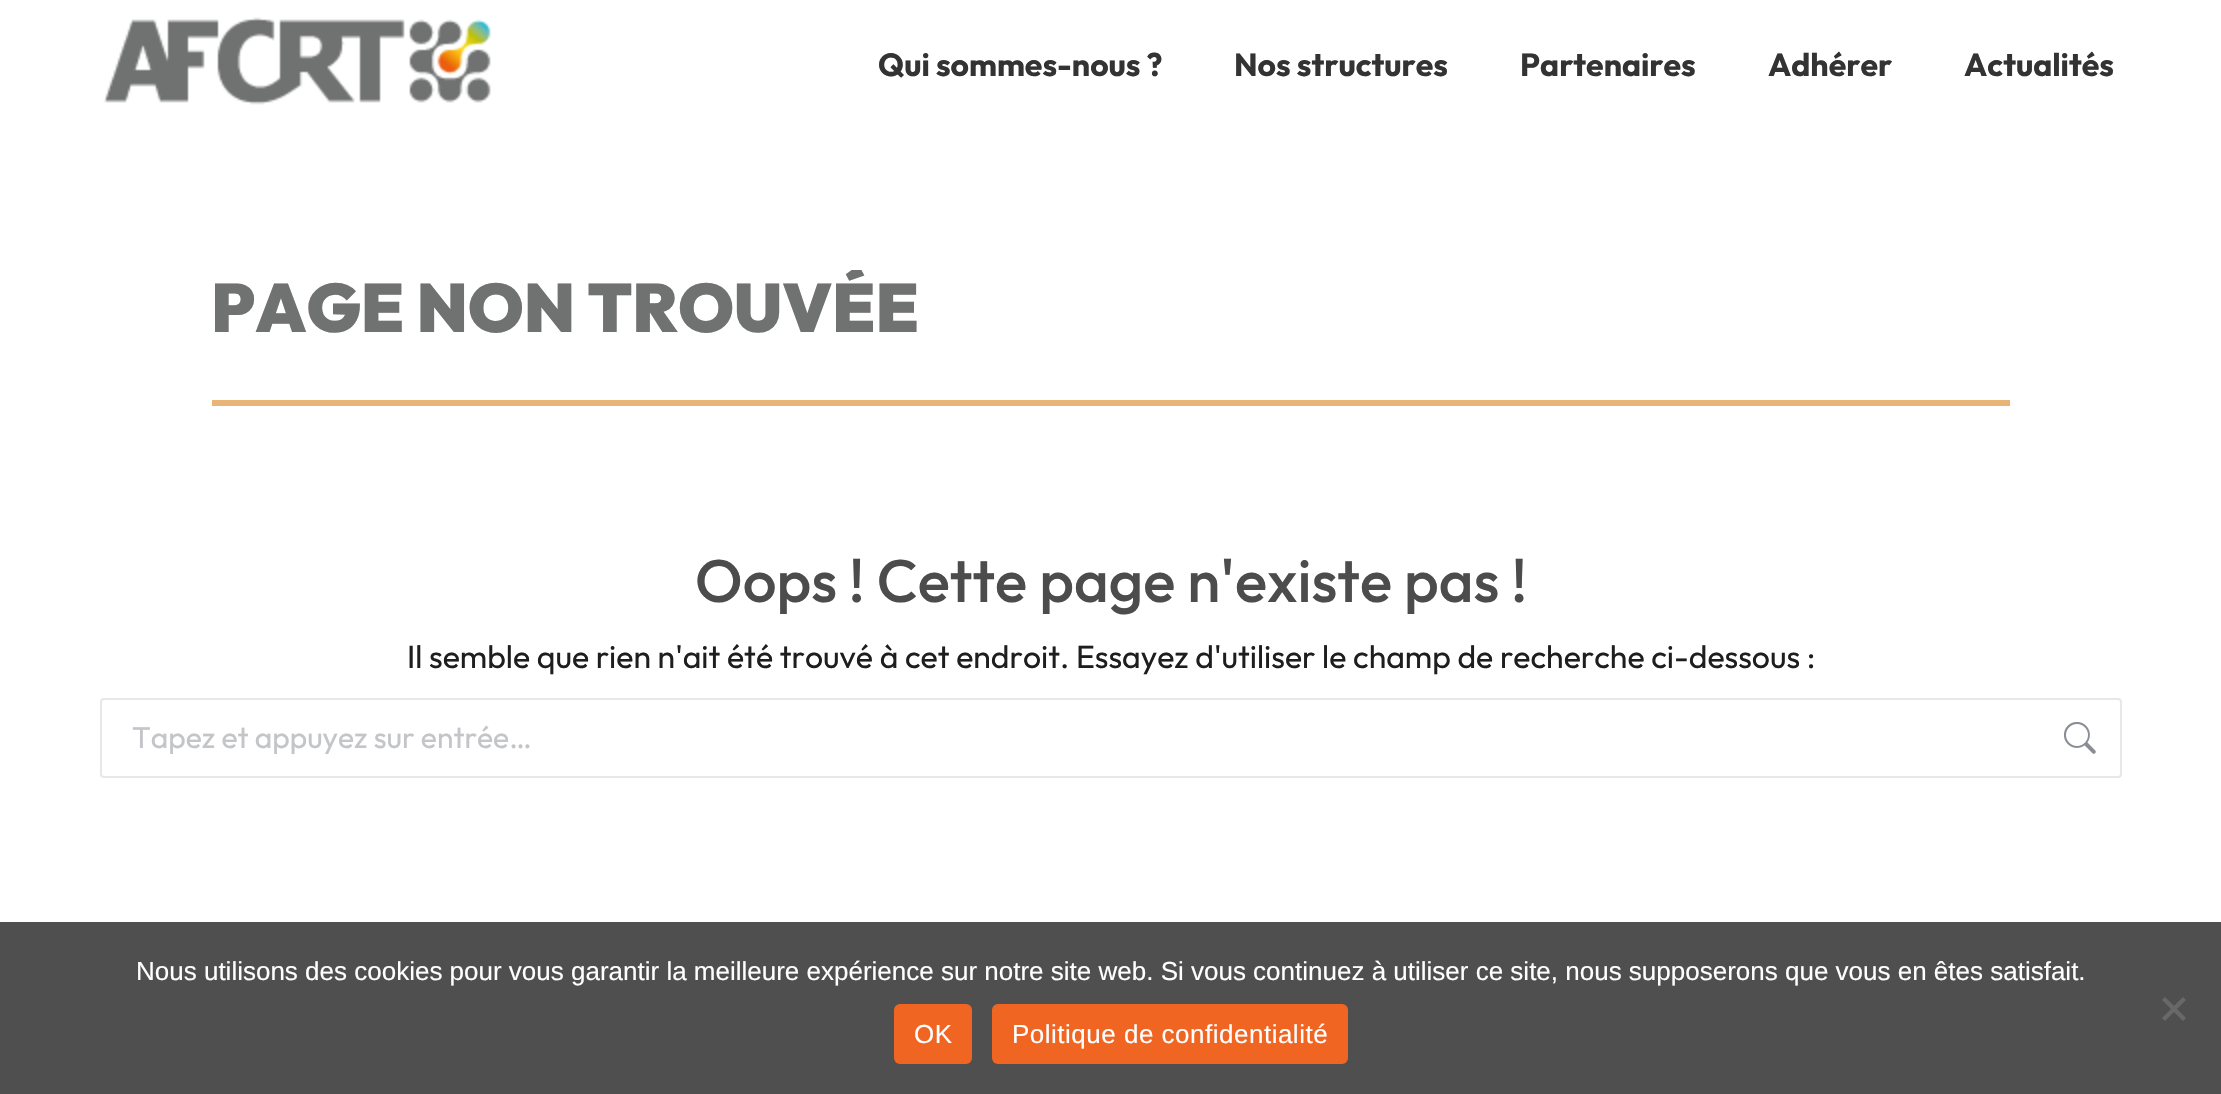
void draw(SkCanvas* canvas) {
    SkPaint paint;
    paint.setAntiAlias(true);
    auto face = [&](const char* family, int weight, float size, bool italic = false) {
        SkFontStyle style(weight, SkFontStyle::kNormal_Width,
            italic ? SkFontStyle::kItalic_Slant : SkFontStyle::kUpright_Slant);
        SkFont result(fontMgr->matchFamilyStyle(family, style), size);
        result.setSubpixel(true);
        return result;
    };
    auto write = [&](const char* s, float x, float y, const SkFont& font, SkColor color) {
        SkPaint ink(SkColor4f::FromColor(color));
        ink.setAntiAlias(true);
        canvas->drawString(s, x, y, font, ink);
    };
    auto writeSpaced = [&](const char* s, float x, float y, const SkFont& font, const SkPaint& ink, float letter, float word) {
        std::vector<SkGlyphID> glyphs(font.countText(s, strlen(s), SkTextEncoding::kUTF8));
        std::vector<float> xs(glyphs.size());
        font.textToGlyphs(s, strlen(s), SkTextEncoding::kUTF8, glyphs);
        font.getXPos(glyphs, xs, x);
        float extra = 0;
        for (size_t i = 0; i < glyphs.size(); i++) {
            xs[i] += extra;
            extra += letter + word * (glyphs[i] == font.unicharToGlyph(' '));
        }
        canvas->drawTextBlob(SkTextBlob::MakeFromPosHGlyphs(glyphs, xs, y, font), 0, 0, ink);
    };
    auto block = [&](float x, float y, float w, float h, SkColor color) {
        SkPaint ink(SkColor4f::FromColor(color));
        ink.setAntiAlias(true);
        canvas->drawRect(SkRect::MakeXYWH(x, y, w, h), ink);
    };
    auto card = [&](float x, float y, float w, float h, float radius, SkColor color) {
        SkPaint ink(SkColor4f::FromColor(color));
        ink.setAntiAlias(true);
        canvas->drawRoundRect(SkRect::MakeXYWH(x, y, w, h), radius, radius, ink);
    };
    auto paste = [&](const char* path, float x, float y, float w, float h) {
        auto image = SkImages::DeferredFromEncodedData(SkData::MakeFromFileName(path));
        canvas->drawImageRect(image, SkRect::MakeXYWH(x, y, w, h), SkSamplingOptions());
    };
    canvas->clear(SK_ColorWHITE);
    paste("pic1.png", 103, 17, 388, 88);
    auto kFont1 = face("Outfit", 700, 32);
    write("Qui sommes-nous ?", 878, 76, kFont1, SkColorSetRGB(51, 51, 51));
    write("Nos structures", 1234, 76, kFont1, SkColorSetRGB(51, 51, 51));
    write("Partenaires", 1520, 76, kFont1, SkColorSetRGB(51, 51, 51));
    write("Adhérer", 1768, 76, kFont1, SkColorSetRGB(51, 51, 51));
    write("Actualités", 1964, 76, kFont1, SkColorSetRGB(51, 51, 51));
    canvas->save();
    canvas->clipRect(SkRect::MakeXYWH(212, 270, 708, 76));
    auto kFont2 = face("Outfit", 900, 68);
    write("PAGE NON TROUVÉE", 211, 332, kFont2, SkColorSetRGB(112, 113, 113));
    canvas->restore();
    block(212, 400, 1798, 6, SkColorSetRGB(233, 181, 118));
    auto kFont3 = face("Outfit", 500, 60);
    write("Oops ! Cette page n'existe pas !", 695, 602, kFont3, SkColorSetRGB(76, 76, 76));
    auto kFont4 = face("Outfit", 400, 32);
    write("Il semble que rien n'ait été trouvé à cet endroit. Essayez d'utiliser le champ de recherche ci-dessous :", 407, 668, kFont4, SkColorSetRGB(30, 30, 30));
    paint.setStyle(SkPaint::kStroke_Style);
    paint.setStrokeWidth(2);
    paint.setColor(SkColorSetRGB(231, 231, 231));
    canvas->drawRoundRect(SkRect::MakeXYWH(101, 699, 2020, 78), 3, 3, paint);
    auto kFont5 = face("Outfit", 400, 30);
    write("Tapez et appuyez sur entrée…", 132, 748, kFont5, SkColorSetRGB(196, 197, 201));
    paste("pic2.png", 2064, 722, 32, 32);
    block(0, 922, 2221, 172, SkColorSetRGB(79, 79, 79));
    auto kFont6 = face("Liberation Sans", 400, 26);
    write("Nous utilisons des cookies pour vous garantir la meilleure expérience sur notre site web. Si vous continuez à utiliser ce site, nous supposerons que vous en êtes satisfait.", 136, 980, kFont6, SK_ColorWHITE);
    paint.setStyle(SkPaint::kFill_Style);
    paint.setColor(SkColorSetRGB(104, 104, 104));
    canvas->drawPath(SkPathBuilder().moveTo(2183, 997).lineTo(2186, 1000).lineTo(2165, 1021).lineTo(2162, 1018).close().detach(), paint);
    canvas->drawPath(SkPathBuilder().moveTo(2162, 1000).lineTo(2165, 997).lineTo(2186, 1018).lineTo(2183, 1021).close().detach(), paint);
    card(894, 1004, 78, 60, 6, SkColorSetRGB(241, 101, 34));
    paint.setColor(SK_ColorWHITE);
    writeSpaced("OK", 914, 1043, kFont6, paint, 0.5f, 0);
    card(992, 1004, 356, 60, 6, SkColorSetRGB(241, 101, 34));
    writeSpaced("Politique de confidentialité", 1012, 1043, kFont6, paint, 0.5f, 0);
}
